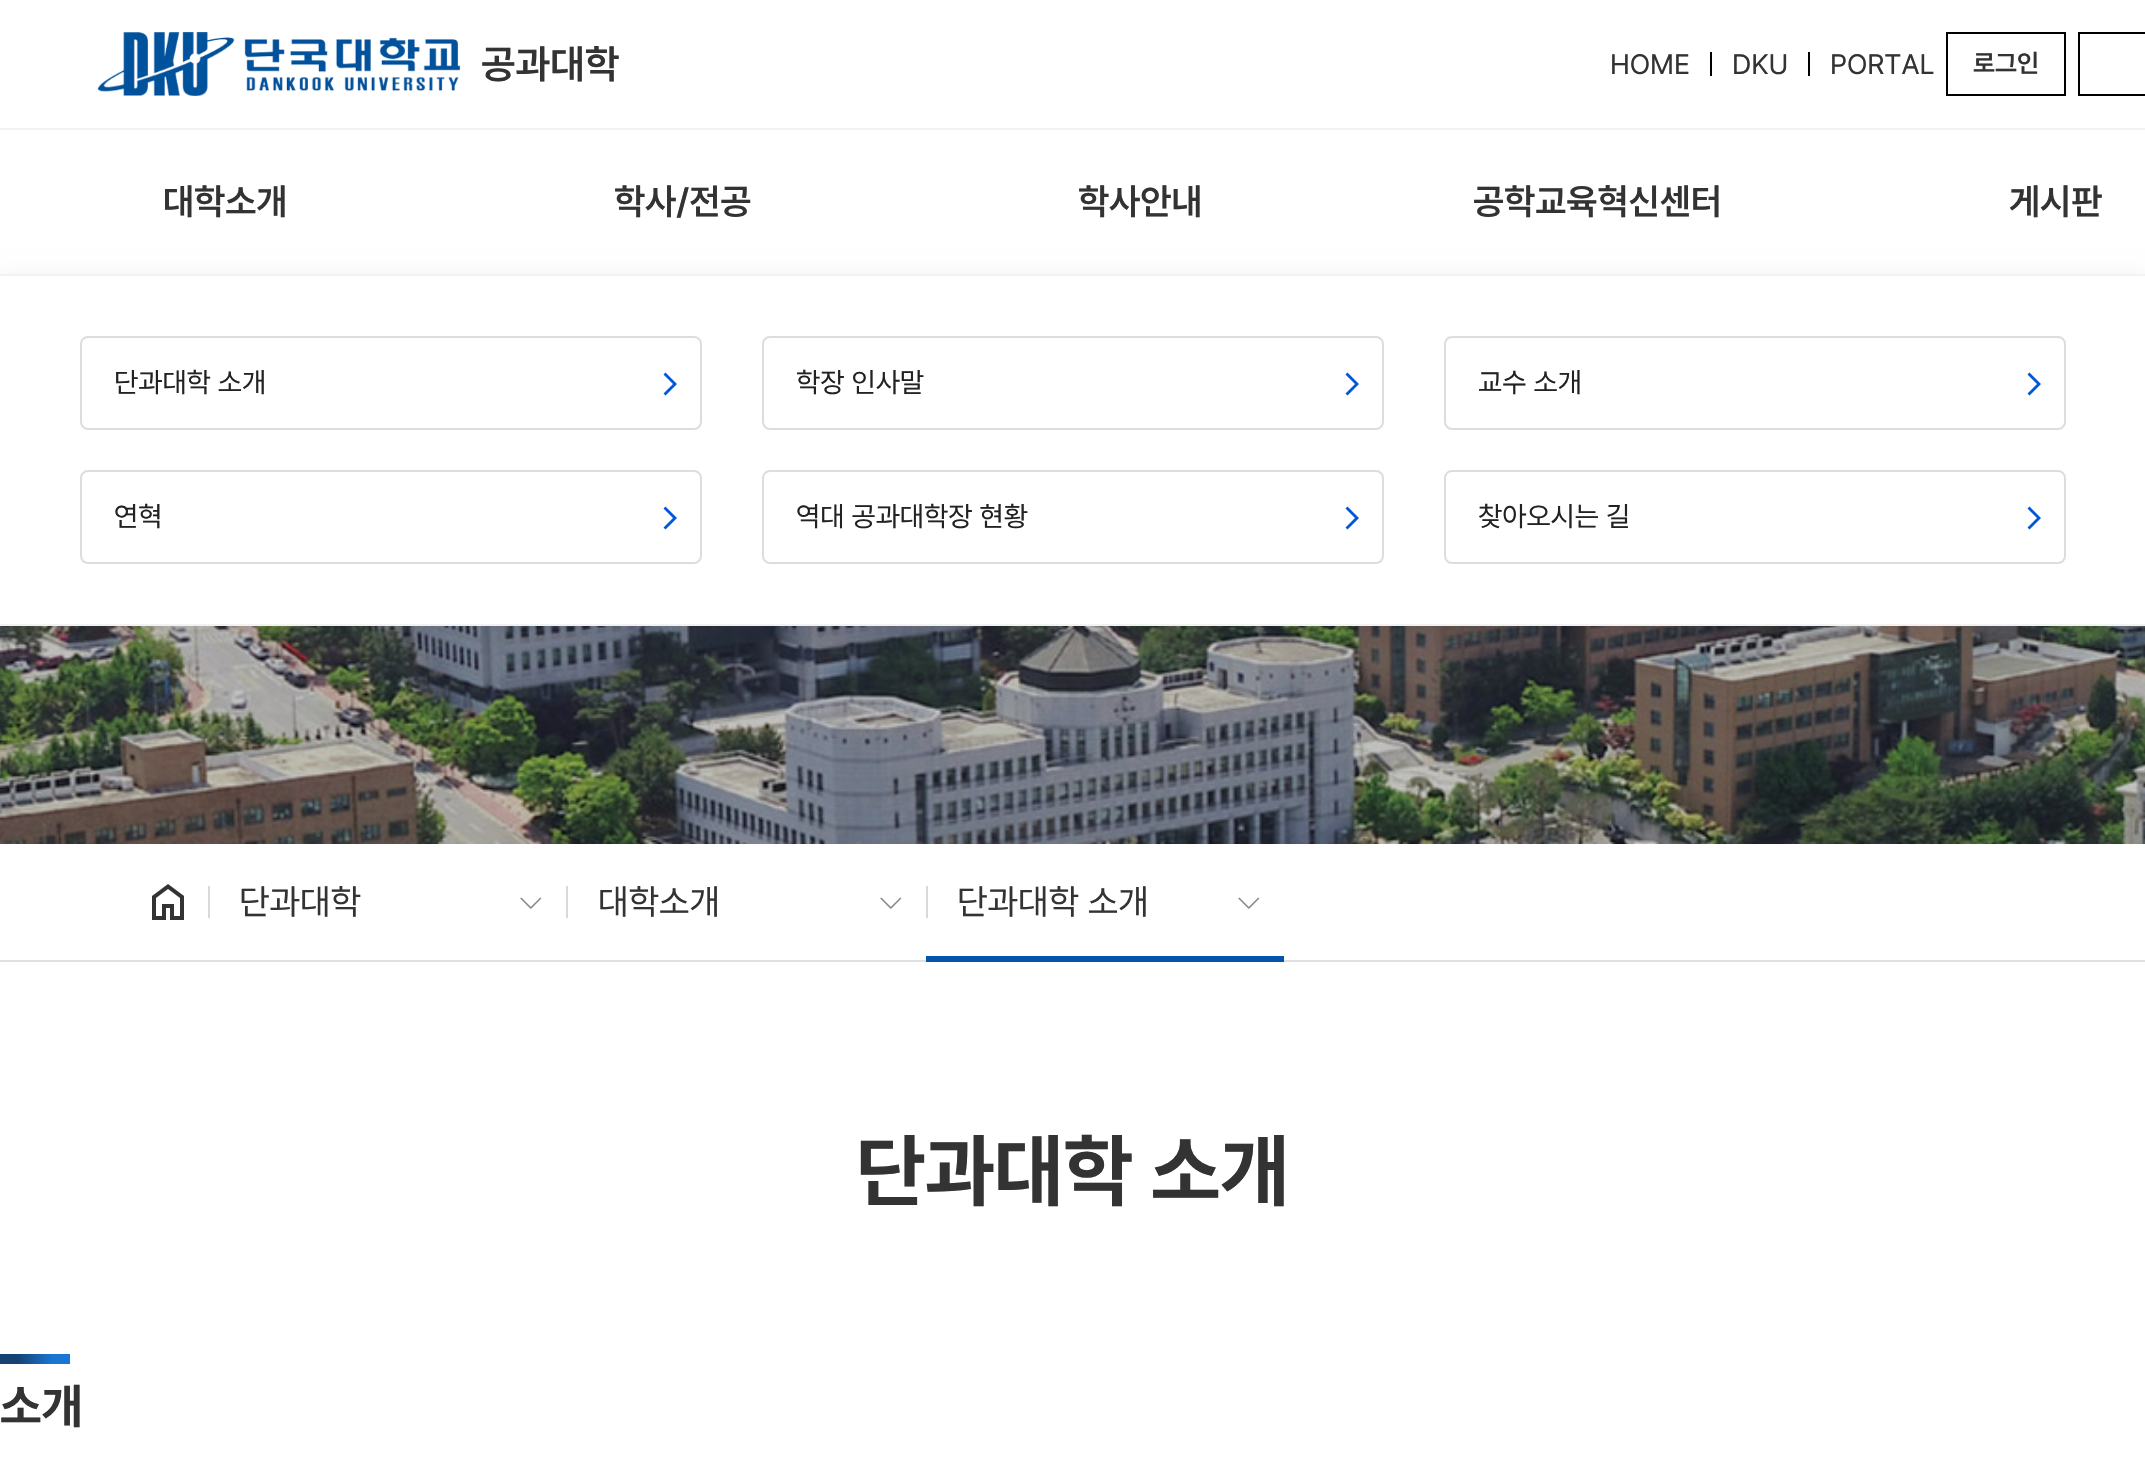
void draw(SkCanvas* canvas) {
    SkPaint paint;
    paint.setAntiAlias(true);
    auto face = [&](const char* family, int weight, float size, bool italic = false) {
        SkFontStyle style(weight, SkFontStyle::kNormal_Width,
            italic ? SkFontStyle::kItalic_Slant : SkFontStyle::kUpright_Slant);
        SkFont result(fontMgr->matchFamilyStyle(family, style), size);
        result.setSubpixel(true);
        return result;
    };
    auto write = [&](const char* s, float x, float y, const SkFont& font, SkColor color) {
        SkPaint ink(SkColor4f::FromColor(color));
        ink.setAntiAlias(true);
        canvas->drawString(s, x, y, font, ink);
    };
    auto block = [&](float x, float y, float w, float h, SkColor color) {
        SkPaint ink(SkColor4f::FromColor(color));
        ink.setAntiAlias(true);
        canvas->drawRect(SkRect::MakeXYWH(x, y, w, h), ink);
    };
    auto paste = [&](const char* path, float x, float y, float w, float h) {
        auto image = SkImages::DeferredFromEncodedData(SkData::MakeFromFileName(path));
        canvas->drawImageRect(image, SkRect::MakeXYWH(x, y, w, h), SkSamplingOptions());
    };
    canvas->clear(SK_ColorWHITE);
    block(0, 128, 2145, 2, SkColorSetRGB(242, 242, 242));
    paste("pic1.png", 97, 32, 364, 64);
    auto kFont1 = face("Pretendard", 600, 40);
    write("공과대학", 481, 78, kFont1, SkColorSetRGB(51, 51, 51));
    auto kFont2 = face("Pretendard", 400, 28);
    write("HOME", 1610, 74, kFont2, SkColorSetRGB(51, 51, 51));
    block(1710, 52, 2, 24, SK_ColorBLACK);
    write("DKU", 1732, 74, kFont2, SkColorSetRGB(51, 51, 51));
    block(1808, 52, 2, 24, SK_ColorBLACK);
    write("PORTAL", 1830, 74, kFont2, SkColorSetRGB(51, 51, 51));
    paint.setStyle(SkPaint::kStroke_Style);
    paint.setStrokeWidth(2);
    paint.setColor(SK_ColorBLACK);
    canvas->drawRect(SkRect::MakeXYWH(1947, 33, 118, 62), paint);
    auto kFont3 = face("Pretendard", 600, 25.5f);
    write("로그인", 1973, 72, kFont3, SkColorSetRGB(51, 51, 51));
    canvas->drawRect(SkRect::MakeXYWH(2079, 33, 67, 62), paint);
    auto kFont4 = face("Pretendard", 600, 36);
    write("대학소개", 163, 214, kFont4, SkColorSetRGB(51, 51, 51));
    paste("pic2.png", 0, 626, 2145, 218);
    paint.setStyle(SkPaint::kFill_Style);
    paint.setColor(SkColorSetARGB(26, 0, 0, 0));
    paint.setMaskFilter(SkMaskFilter::MakeBlur(kNormal_SkBlurStyle, 12));
    canvas->drawRect(SkRect::MakeXYWH(0, 282, 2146, 352), paint);
    paint.setMaskFilter(nullptr);
    block(0, 276, 2145, 348, SK_ColorWHITE);
    block(0, 274, 2145, 2, SkColorSetRGB(242, 242, 242));
    block(0, 624, 2145, 2, SkColorSetRGB(242, 242, 242));
    paint.setStyle(SkPaint::kStroke_Style);
    paint.setColor(SkColorSetRGB(221, 221, 221));
    canvas->drawRoundRect(SkRect::MakeXYWH(81, 337, 620, 92), 7, 7, paint);
    write("단과대학 소개", 114, 392, kFont2, SkColorSetRGB(34, 34, 34));
    paint.setStyle(SkPaint::kFill_Style);
    paint.setColor(SkColorSetRGB(0, 87, 217));
    canvas->drawPath(SkPathBuilder().moveTo(665.5f, 395.5f).lineTo(663.5f, 393.5f).lineTo(673, 384).lineTo(663.5f, 374.5f).lineTo(665.5f, 372.5f).lineTo(677, 384).close().detach(), paint);
    paint.setStyle(SkPaint::kStroke_Style);
    paint.setColor(SkColorSetRGB(221, 221, 221));
    canvas->drawRoundRect(SkRect::MakeXYWH(763, 337, 620, 92), 7, 7, paint);
    write("학장 인사말", 796, 392, kFont2, SkColorSetRGB(34, 34, 34));
    paint.setStyle(SkPaint::kFill_Style);
    paint.setColor(SkColorSetRGB(0, 87, 217));
    canvas->drawPath(SkPathBuilder().moveTo(1347.5f, 395.5f).lineTo(1345.5f, 393.5f).lineTo(1355, 384).lineTo(1345.5f, 374.5f).lineTo(1347.5f, 372.5f).lineTo(1359, 384).close().detach(), paint);
    paint.setStyle(SkPaint::kStroke_Style);
    paint.setColor(SkColorSetRGB(221, 221, 221));
    canvas->drawRoundRect(SkRect::MakeXYWH(1445, 337, 620, 92), 7, 7, paint);
    write("교수 소개", 1478, 392, kFont2, SkColorSetRGB(34, 34, 34));
    paint.setStyle(SkPaint::kFill_Style);
    paint.setColor(SkColorSetRGB(0, 87, 217));
    canvas->drawPath(SkPathBuilder().moveTo(2029.5f, 395.5f).lineTo(2027.5f, 393.5f).lineTo(2037, 384).lineTo(2027.5f, 374.5f).lineTo(2029.5f, 372.5f).lineTo(2041, 384).close().detach(), paint);
    paint.setStyle(SkPaint::kStroke_Style);
    paint.setColor(SkColorSetRGB(221, 221, 221));
    canvas->drawRoundRect(SkRect::MakeXYWH(81, 471, 620, 92), 7, 7, paint);
    write("연혁", 114, 526, kFont2, SkColorSetRGB(34, 34, 34));
    paint.setStyle(SkPaint::kFill_Style);
    paint.setColor(SkColorSetRGB(0, 87, 217));
    canvas->drawPath(SkPathBuilder().moveTo(665.5f, 529.5f).lineTo(663.5f, 527.5f).lineTo(673, 518).lineTo(663.5f, 508.5f).lineTo(665.5f, 506.5f).lineTo(677, 518).close().detach(), paint);
    paint.setStyle(SkPaint::kStroke_Style);
    paint.setColor(SkColorSetRGB(221, 221, 221));
    canvas->drawRoundRect(SkRect::MakeXYWH(763, 471, 620, 92), 7, 7, paint);
    write("역대 공과대학장 현황", 796, 526, kFont2, SkColorSetRGB(34, 34, 34));
    paint.setStyle(SkPaint::kFill_Style);
    paint.setColor(SkColorSetRGB(0, 87, 217));
    canvas->drawPath(SkPathBuilder().moveTo(1347.5f, 529.5f).lineTo(1345.5f, 527.5f).lineTo(1355, 518).lineTo(1345.5f, 508.5f).lineTo(1347.5f, 506.5f).lineTo(1359, 518).close().detach(), paint);
    paint.setStyle(SkPaint::kStroke_Style);
    paint.setColor(SkColorSetRGB(221, 221, 221));
    canvas->drawRoundRect(SkRect::MakeXYWH(1445, 471, 620, 92), 7, 7, paint);
    write("찾아오시는 길", 1478, 526, kFont2, SkColorSetRGB(34, 34, 34));
    paint.setStyle(SkPaint::kFill_Style);
    paint.setColor(SkColorSetRGB(0, 87, 217));
    canvas->drawPath(SkPathBuilder().moveTo(2029.5f, 529.5f).lineTo(2027.5f, 527.5f).lineTo(2037, 518).lineTo(2027.5f, 508.5f).lineTo(2029.5f, 506.5f).lineTo(2041, 518).close().detach(), paint);
    write("학사/전공", 614, 214, kFont4, SkColorSetRGB(51, 51, 51));
    write("학사안내", 1078, 214, kFont4, SkColorSetRGB(51, 51, 51));
    write("공학교육혁신센터", 1473, 214, kFont4, SkColorSetRGB(51, 51, 51));
    write("게시판", 2009, 214, kFont4, SkColorSetRGB(51, 51, 51));
    block(0, 960, 2145, 2, SkColorSetRGB(224, 224, 224));
    paste("pic3.png", 152, 884, 32, 36);
    block(208, 886, 2, 32, SkColorSetRGB(217, 217, 217));
    auto kFont5 = face("Pretendard", 400, 35.25f);
    write("단과대학", 239, 914, kFont5, SkColorSetRGB(51, 51, 51));
    paste("pic4.png", 520, 897, 22, 12);
    block(566, 886, 2, 32, SkColorSetRGB(217, 217, 217));
    write("대학소개", 598, 914, kFont5, SkColorSetRGB(51, 51, 51));
    paste("pic4.png", 880, 897, 22, 12);
    block(926, 886, 2, 32, SkColorSetRGB(217, 217, 217));
    write("단과대학 소개", 957, 914, kFont5, SkColorSetRGB(51, 51, 51));
    block(926, 956, 358, 6, SkColorSetRGB(3, 85, 169));
    paste("pic4.png", 1238, 897, 22, 12);
    auto kFont6 = face("Pretendard", 700, 80);
    write("단과대학 소개", 856, 1199, kFont6, SkColorSetRGB(51, 51, 51));
    {
        const SkColor colors[] = {SkColorSetRGB(21, 66, 115), SkColorSetRGB(25, 118, 210)};
        const float stops[] = {0.25f, 0.75f};
        const SkPoint ends[] = {{0, 1359}, {70, 1359}};
        paint.setShader(SkGradientShader::MakeLinear(ends, colors, stops, 2, SkTileMode::kClamp));
        paint.setAlpha(255);
    }
    canvas->drawRect(SkRect::MakeXYWH(0, 1354, 70, 10), paint);
    auto kFont7 = face("Pretendard", 700, 48);
    write("소개", 0, 1423, kFont7, SkColorSetRGB(51, 51, 51));
}
